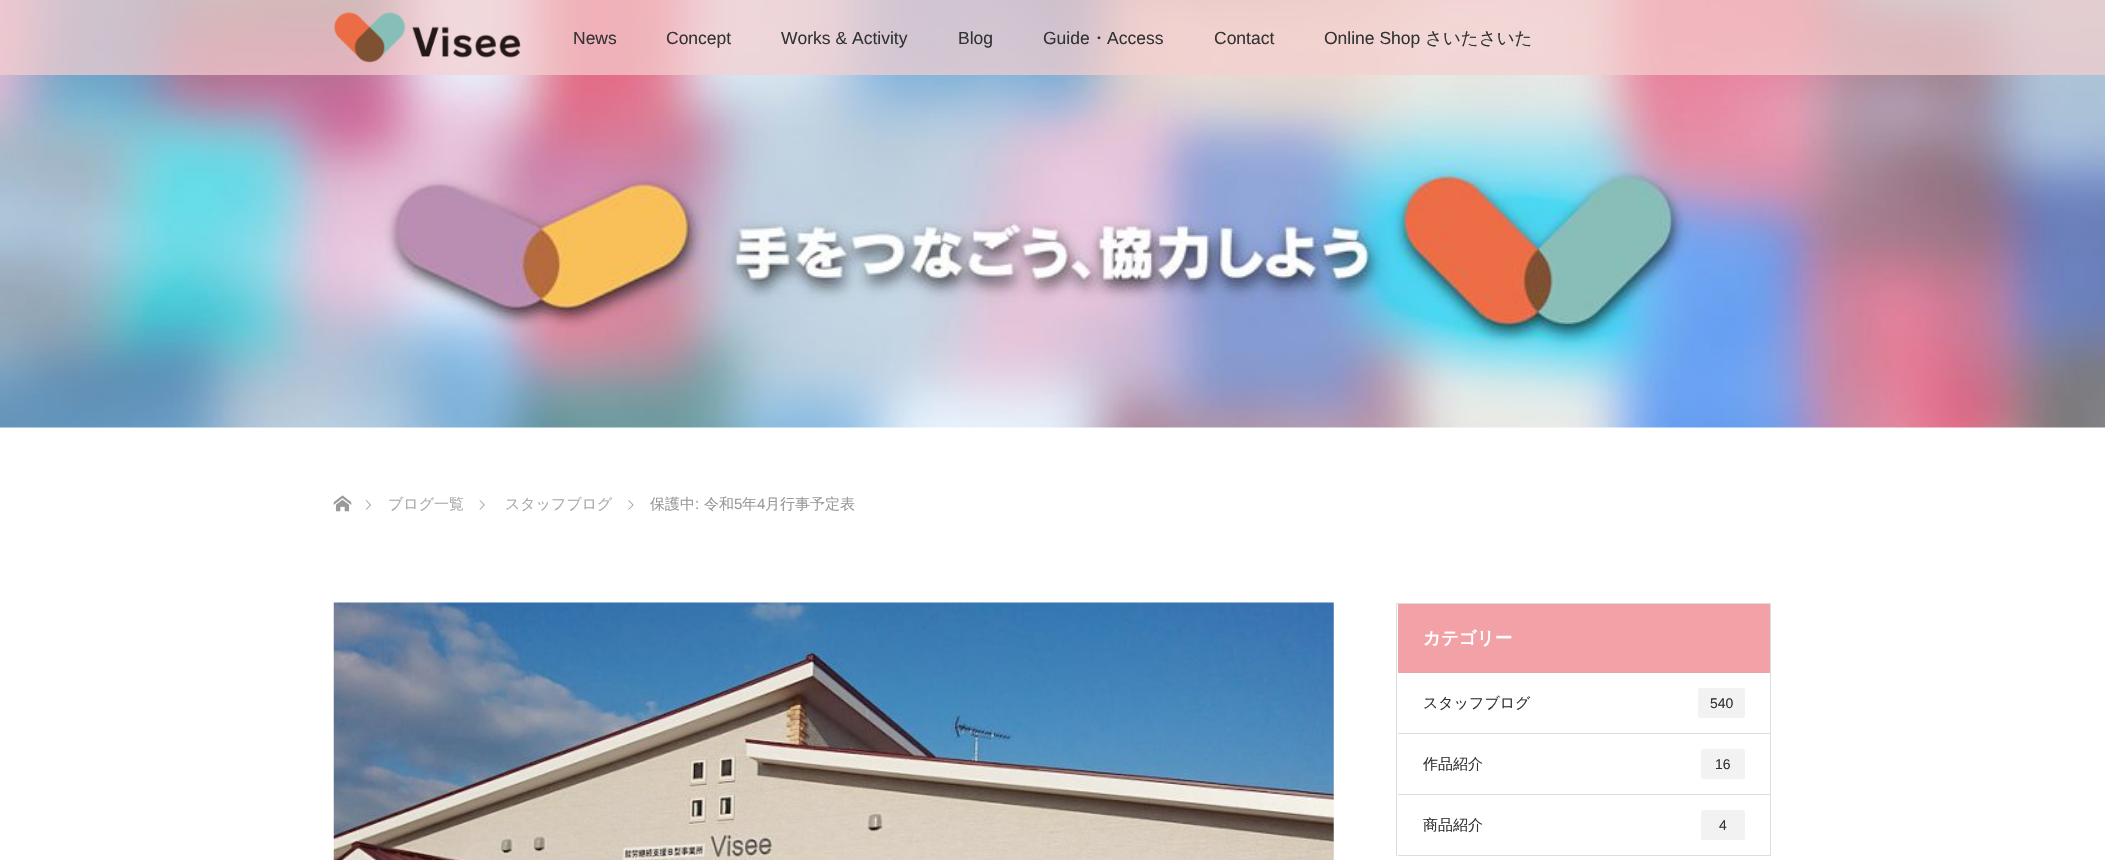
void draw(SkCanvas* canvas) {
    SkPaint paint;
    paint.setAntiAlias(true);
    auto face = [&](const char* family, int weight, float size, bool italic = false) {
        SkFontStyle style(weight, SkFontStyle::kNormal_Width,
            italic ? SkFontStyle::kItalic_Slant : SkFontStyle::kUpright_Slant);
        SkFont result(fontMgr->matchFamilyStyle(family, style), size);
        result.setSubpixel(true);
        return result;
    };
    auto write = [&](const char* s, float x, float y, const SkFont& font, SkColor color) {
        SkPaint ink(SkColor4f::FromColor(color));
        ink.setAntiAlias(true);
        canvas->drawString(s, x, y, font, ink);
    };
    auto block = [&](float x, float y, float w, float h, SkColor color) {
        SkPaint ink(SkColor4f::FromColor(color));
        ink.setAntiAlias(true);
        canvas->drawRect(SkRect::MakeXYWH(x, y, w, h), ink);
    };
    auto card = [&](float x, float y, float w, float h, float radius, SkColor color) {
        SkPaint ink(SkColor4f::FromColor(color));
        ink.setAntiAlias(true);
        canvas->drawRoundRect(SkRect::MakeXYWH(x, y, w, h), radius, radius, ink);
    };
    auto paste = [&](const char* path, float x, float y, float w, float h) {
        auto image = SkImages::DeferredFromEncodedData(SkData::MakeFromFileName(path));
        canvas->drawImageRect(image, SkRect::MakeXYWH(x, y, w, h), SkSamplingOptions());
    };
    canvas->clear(SK_ColorWHITE);
    paste("pic2.png", 0, 0, 2105, 428);
    block(0, 0, 2105, 75, SkColorSetARGB(179, 245, 207, 206));
    paste("pic1.png", 334, 12, 187, 51);
    auto kFont1 = face("Liberation Sans", 400, 17.5f);
    write("News", 573, 44, kFont1, SkColorSetRGB(51, 51, 51));
    write("Concept", 666, 44, kFont1, SkColorSetRGB(51, 51, 51));
    write("Works & Activity", 781, 44, kFont1, SkColorSetRGB(51, 51, 51));
    write("Blog", 958, 44, kFont1, SkColorSetRGB(51, 51, 51));
    write("Guide", 1043, 44, kFont1, SkColorSetRGB(51, 51, 51));
    auto kFont2 = face("WenQuanYi Zen Hei", 500, 17.5f);
    write("・", 1090, 44, kFont2, SkColorSetRGB(51, 51, 51));
    write("Access", 1107, 44, kFont1, SkColorSetRGB(51, 51, 51));
    write("Contact", 1214, 44, kFont1, SkColorSetRGB(51, 51, 51));
    write("Online Shop", 1324, 44, kFont1, SkColorSetRGB(51, 51, 51));
    write("さいたさいた", 1425, 44, kFont2, SkColorSetRGB(51, 51, 51));
    paste("pic3.png", 333, 495, 19, 17);
    paste("pic4.png", 365, 500, 6, 10);
    auto kFont3 = face("WenQuanYi Zen Hei", 500, 15);
    write("ブログ一覧", 388, 509, kFont3, SkColorSetRGB(170, 170, 170));
    paste("pic5.png", 479, 500, 6, 10);
    write("スタッフブログ", 505, 509, kFont3, SkColorSetRGB(170, 170, 170));
    paste("pic6.png", 628, 500, 6, 10);
    write("保護中", 650, 509, kFont3, SkColorSetRGB(153, 153, 153));
    auto kFont4 = face("Liberation Sans", 400, 15);
    write(":", 695, 509, kFont4, SkColorSetRGB(153, 153, 153));
    write("令和", 704, 509, kFont3, SkColorSetRGB(153, 153, 153));
    write("5", 734, 509, kFont4, SkColorSetRGB(153, 153, 153));
    write("年", 742, 509, kFont3, SkColorSetRGB(153, 153, 153));
    write("4", 757, 509, kFont4, SkColorSetRGB(153, 153, 153));
    write("月行事予定表", 765, 509, kFont3, SkColorSetRGB(153, 153, 153));
    paste("pic7.png", 333, 602, 1001, 258);
    block(1396, 603, 375, 1, SkColorSetRGB(221, 221, 221));
    block(1770, 603, 1, 253, SkColorSetRGB(221, 221, 221));
    block(1396, 603, 1, 253, SkColorSetRGB(221, 221, 221));
    block(1398, 604, 372, 69, SkColorSetRGB(242, 161, 167));
    auto kFont5 = face("WenQuanYi Zen Hei", 700, 17.5f);
    write("カテゴリー", 1423, 644, kFont5, SK_ColorWHITE);
    block(1398, 733, 372, 1, SkColorSetRGB(221, 221, 221));
    write("スタッフブログ", 1423, 708, kFont3, SkColorSetRGB(51, 51, 51));
    card(1698, 688, 47, 30, 2.5f, SkColorSetRGB(242, 242, 242));
    auto kFont6 = face("Liberation Sans", 400, 14);
    write("540", 1710, 708, kFont6, SkColorSetRGB(51, 51, 51));
    block(1398, 794, 372, 1, SkColorSetRGB(221, 221, 221));
    write("作品紹介", 1423, 769, kFont3, SkColorSetRGB(51, 51, 51));
    card(1701, 749, 44, 30, 2.5f, SkColorSetRGB(242, 242, 242));
    write("16", 1715, 769, kFont6, SkColorSetRGB(51, 51, 51));
    block(1398, 855, 372, 1, SkColorSetRGB(221, 221, 221));
    write("商品紹介", 1423, 830, kFont3, SkColorSetRGB(51, 51, 51));
    card(1701, 810, 44, 30, 2.5f, SkColorSetRGB(242, 242, 242));
    write("4", 1719, 830, kFont6, SkColorSetRGB(51, 51, 51));
}
